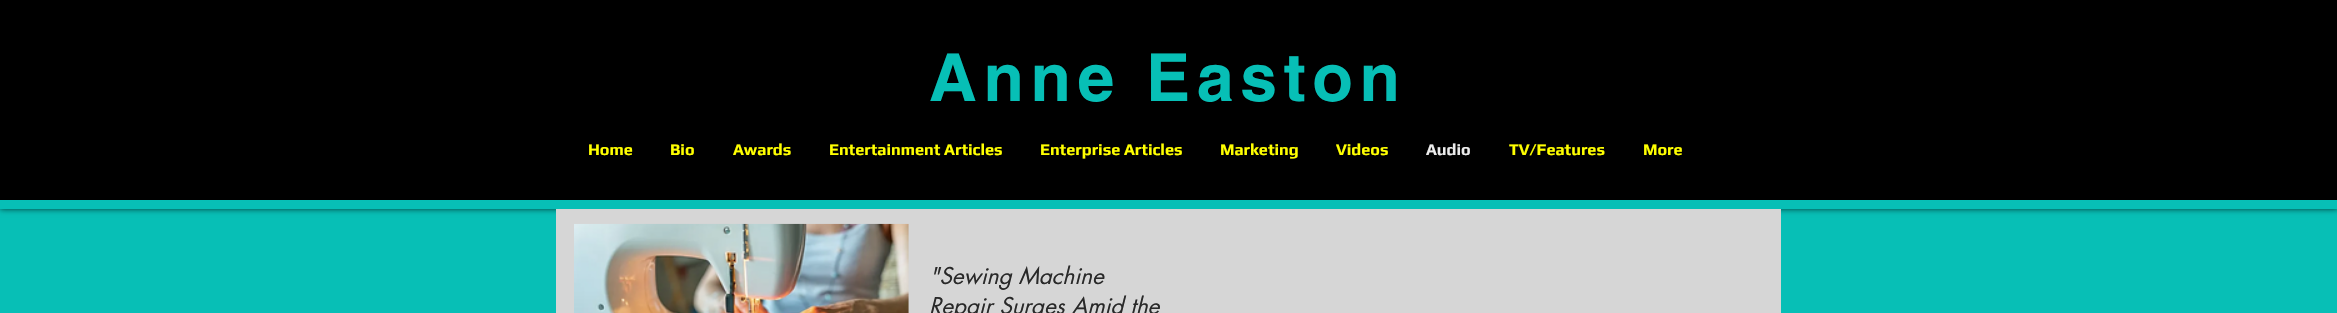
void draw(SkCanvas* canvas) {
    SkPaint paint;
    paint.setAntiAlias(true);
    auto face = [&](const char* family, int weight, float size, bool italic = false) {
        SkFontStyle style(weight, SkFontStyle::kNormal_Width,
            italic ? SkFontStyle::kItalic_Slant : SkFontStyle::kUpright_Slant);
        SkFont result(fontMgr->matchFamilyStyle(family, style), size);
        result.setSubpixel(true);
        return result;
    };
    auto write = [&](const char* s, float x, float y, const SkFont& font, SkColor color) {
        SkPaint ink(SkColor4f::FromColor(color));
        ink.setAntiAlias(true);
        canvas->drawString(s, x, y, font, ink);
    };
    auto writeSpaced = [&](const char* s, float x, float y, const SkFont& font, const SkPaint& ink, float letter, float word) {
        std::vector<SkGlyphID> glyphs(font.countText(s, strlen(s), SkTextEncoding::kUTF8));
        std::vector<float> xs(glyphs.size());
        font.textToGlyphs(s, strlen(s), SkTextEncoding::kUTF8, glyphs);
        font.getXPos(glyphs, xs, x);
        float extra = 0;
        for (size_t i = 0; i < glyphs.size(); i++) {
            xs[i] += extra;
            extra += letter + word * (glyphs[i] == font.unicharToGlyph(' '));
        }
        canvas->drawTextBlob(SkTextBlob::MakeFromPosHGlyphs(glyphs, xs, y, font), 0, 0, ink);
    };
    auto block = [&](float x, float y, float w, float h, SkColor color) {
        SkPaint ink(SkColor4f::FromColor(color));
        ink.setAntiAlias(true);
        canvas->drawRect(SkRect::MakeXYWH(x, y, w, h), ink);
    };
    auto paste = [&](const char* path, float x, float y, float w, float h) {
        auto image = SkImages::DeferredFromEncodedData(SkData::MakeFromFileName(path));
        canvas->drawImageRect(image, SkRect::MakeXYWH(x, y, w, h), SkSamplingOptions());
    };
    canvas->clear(SkColorSetRGB(7, 191, 182));
    paint.setColor(SkColorSetARGB(179, 0, 0, 0));
    paint.setMaskFilter(SkMaskFilter::MakeBlur(kNormal_SkBlurStyle, 3));
    canvas->drawRect(SkRect::MakeXYWH(0, 0, 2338, 209), paint);
    paint.setMaskFilter(nullptr);
    block(0, 0, 2337, 200, SK_ColorBLACK);
    block(0, 200, 2337, 9, SkColorSetRGB(7, 191, 182));
    auto kFont1 = face("helvetica", 700, 66.25f);
    paint.setColor(SkColorSetRGB(7, 191, 182));
    writeSpaced("Anne Easton", 929, 101, kFont1, paint, 6.6f, 0);
    auto kFont2 = face("Play", 700, 16.25f);
    write("Home", 588, 155, kFont2, SkColorSetRGB(255, 255, 0));
    write("Bio", 670, 155, kFont2, SkColorSetRGB(255, 255, 0));
    write("Awards", 733, 155, kFont2, SkColorSetRGB(255, 255, 0));
    write("Entertainment Articles", 829, 155, kFont2, SkColorSetRGB(255, 255, 0));
    write("Enterprise Articles", 1040, 155, kFont2, SkColorSetRGB(255, 255, 0));
    write("Marketing", 1220, 155, kFont2, SkColorSetRGB(255, 255, 0));
    write("Videos", 1336, 155, kFont2, SkColorSetRGB(255, 255, 0));
    write("Audio", 1426, 155, kFont2, SkColorSetRGB(236, 236, 236));
    write("TV/Features", 1509, 155, kFont2, SkColorSetRGB(255, 255, 0));
    write("More", 1643, 155, kFont2, SkColorSetRGB(255, 255, 0));
    block(556, 209, 1225, 104, SkColorSetRGB(214, 214, 214));
    paste("pic1.png", 574, 223, 335, 90);
    auto kFont3 = face("futura", 400, 22.5f, true);
    write("\"Sewing Machine", 929, 284, kFont3, SkColorSetRGB(41, 41, 41));
    write("Repair Surges Amid the", 929, 314, kFont3, SkColorSetRGB(41, 41, 41));
}
